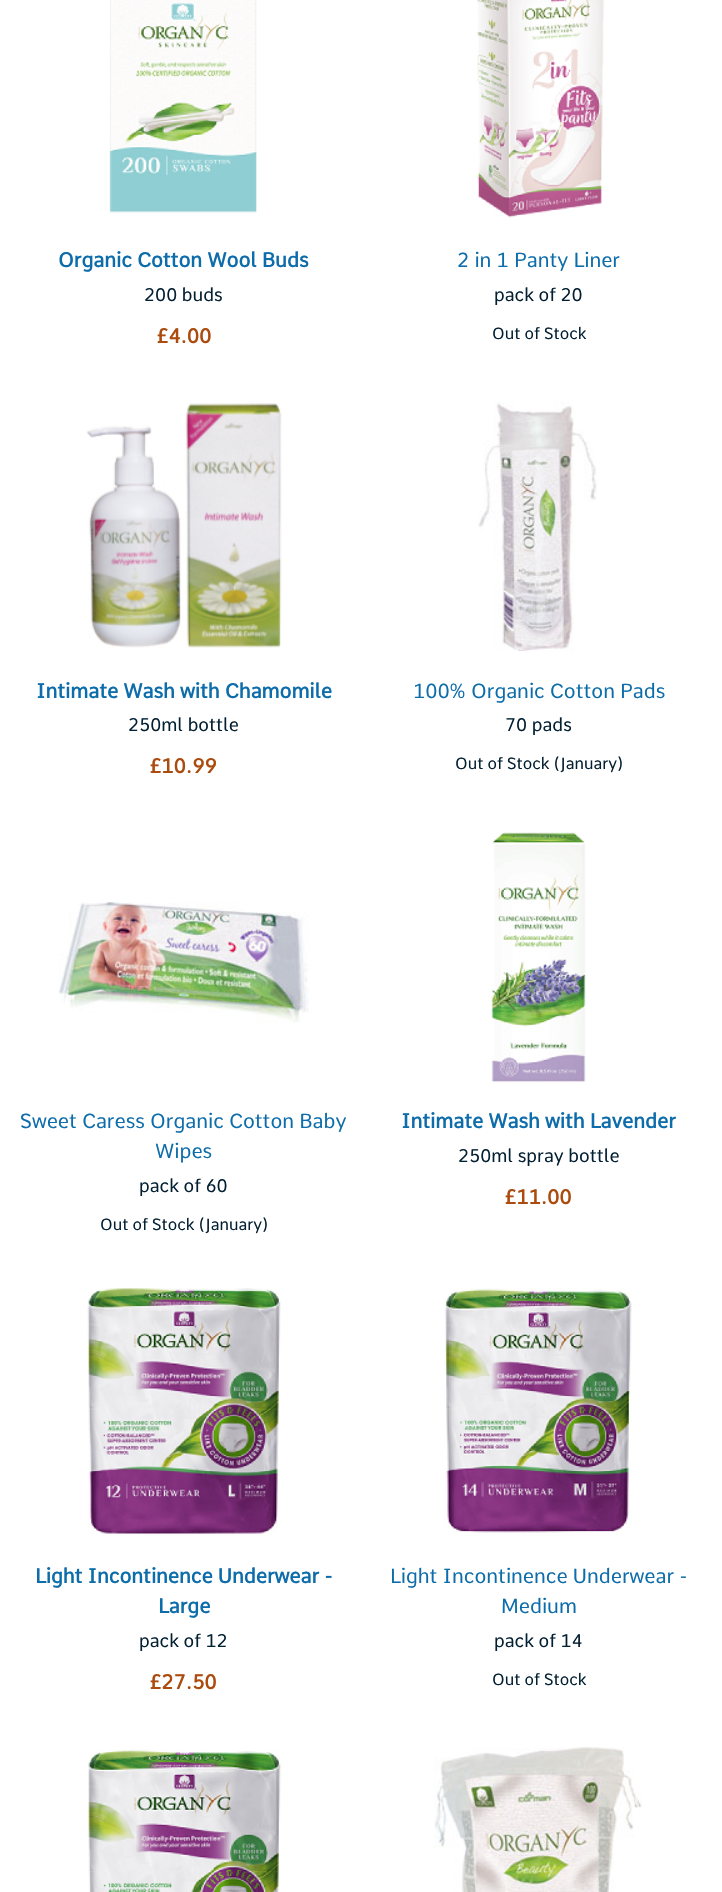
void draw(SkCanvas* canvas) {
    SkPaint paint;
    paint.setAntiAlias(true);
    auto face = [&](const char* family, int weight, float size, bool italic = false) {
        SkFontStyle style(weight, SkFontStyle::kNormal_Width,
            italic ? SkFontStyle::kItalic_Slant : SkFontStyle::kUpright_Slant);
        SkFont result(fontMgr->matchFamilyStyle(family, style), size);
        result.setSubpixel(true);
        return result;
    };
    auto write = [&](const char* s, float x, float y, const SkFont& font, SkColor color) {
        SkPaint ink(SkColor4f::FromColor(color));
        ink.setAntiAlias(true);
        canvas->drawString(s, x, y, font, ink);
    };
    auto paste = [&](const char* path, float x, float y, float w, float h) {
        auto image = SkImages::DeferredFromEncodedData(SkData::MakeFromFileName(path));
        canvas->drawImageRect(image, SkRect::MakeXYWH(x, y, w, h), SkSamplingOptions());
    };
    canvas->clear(SK_ColorWHITE);
    paste("pic1.png", 109, 0, 148, 213);
    auto kFont1 = face("Comme", 700, 20);
    write("Organic Cotton Wool Buds", 58, 267, kFont1, SkColorSetRGB(13, 109, 171));
    auto kFont2 = face("Comme", 400, 18);
    write("200 buds", 144, 301, kFont2, SkColorSetRGB(3, 32, 51));
    write("£4.00", 157, 343, kFont1, SkColorSetRGB(171, 75, 13));
    paste("pic2.png", 477, 0, 127, 218);
    auto kFont3 = face("Comme", 400, 20);
    write("2 in 1 Panty Liner", 457, 267, kFont3, SkColorSetRGB(13, 109, 171));
    write("pack of 20", 494, 301, kFont2, SkColorSetRGB(3, 32, 51));
    auto kFont4 = face("Comme", 400, 16);
    write("Out of Stock", 492, 339, kFont4, SkColorSetRGB(3, 32, 51));
    paste("pic3.png", 86, 403, 196, 245);
    write("Intimate Wash with Chamomile", 36, 698, kFont1, SkColorSetRGB(13, 109, 171));
    write("250ml bottle", 128, 731, kFont2, SkColorSetRGB(3, 32, 51));
    write("£10.99", 150, 773, kFont1, SkColorSetRGB(171, 75, 13));
    paste("pic4.png", 478, 401, 119, 250);
    write("100% Organic Cotton Pads", 413, 698, kFont3, SkColorSetRGB(13, 109, 171));
    write("70 pads", 505, 731, kFont2, SkColorSetRGB(3, 32, 51));
    write("Out of Stock (January)", 455, 769, kFont4, SkColorSetRGB(3, 32, 51));
    paste("pic5.png", 58, 902, 251, 121);
    write("Sweet Caress Organic Cotton Baby", 20, 1128, kFont3, SkColorSetRGB(13, 109, 171));
    write("Wipes", 155, 1158, kFont3, SkColorSetRGB(13, 109, 171));
    write("pack of 60", 139, 1192, kFont2, SkColorSetRGB(3, 32, 51));
    write("Out of Stock (January)", 100, 1230, kFont4, SkColorSetRGB(3, 32, 51));
    paste("pic6.png", 491, 832, 95, 251);
    write("Intimate Wash with Lavender", 401, 1128, kFont1, SkColorSetRGB(13, 109, 171));
    write("250ml spray bottle", 458, 1162, kFont2, SkColorSetRGB(3, 32, 51));
    write("£11.00", 505, 1204, kFont1, SkColorSetRGB(171, 75, 13));
    paste("pic7.png", 87, 1288, 194, 246);
    write("Light Incontinence Underwear -", 35, 1583, kFont1, SkColorSetRGB(13, 109, 171));
    write("Large", 158, 1613, kFont1, SkColorSetRGB(13, 109, 171));
    write("pack of 12", 139, 1647, kFont2, SkColorSetRGB(3, 32, 51));
    write("£27.50", 150, 1689, kFont1, SkColorSetRGB(171, 75, 13));
    paste("pic8.png", 444, 1288, 188, 245);
    write("Light Incontinence Underwear -", 390, 1583, kFont3, SkColorSetRGB(13, 109, 171));
    write("Medium", 501, 1613, kFont3, SkColorSetRGB(13, 109, 171));
    write("pack of 14", 494, 1647, kFont2, SkColorSetRGB(3, 32, 51));
    write("Out of Stock", 492, 1685, kFont4, SkColorSetRGB(3, 32, 51));
    paste("pic9.png", 88, 1749, 194, 143);
    paste("pic10.png", 434, 1747, 208, 145);
}
